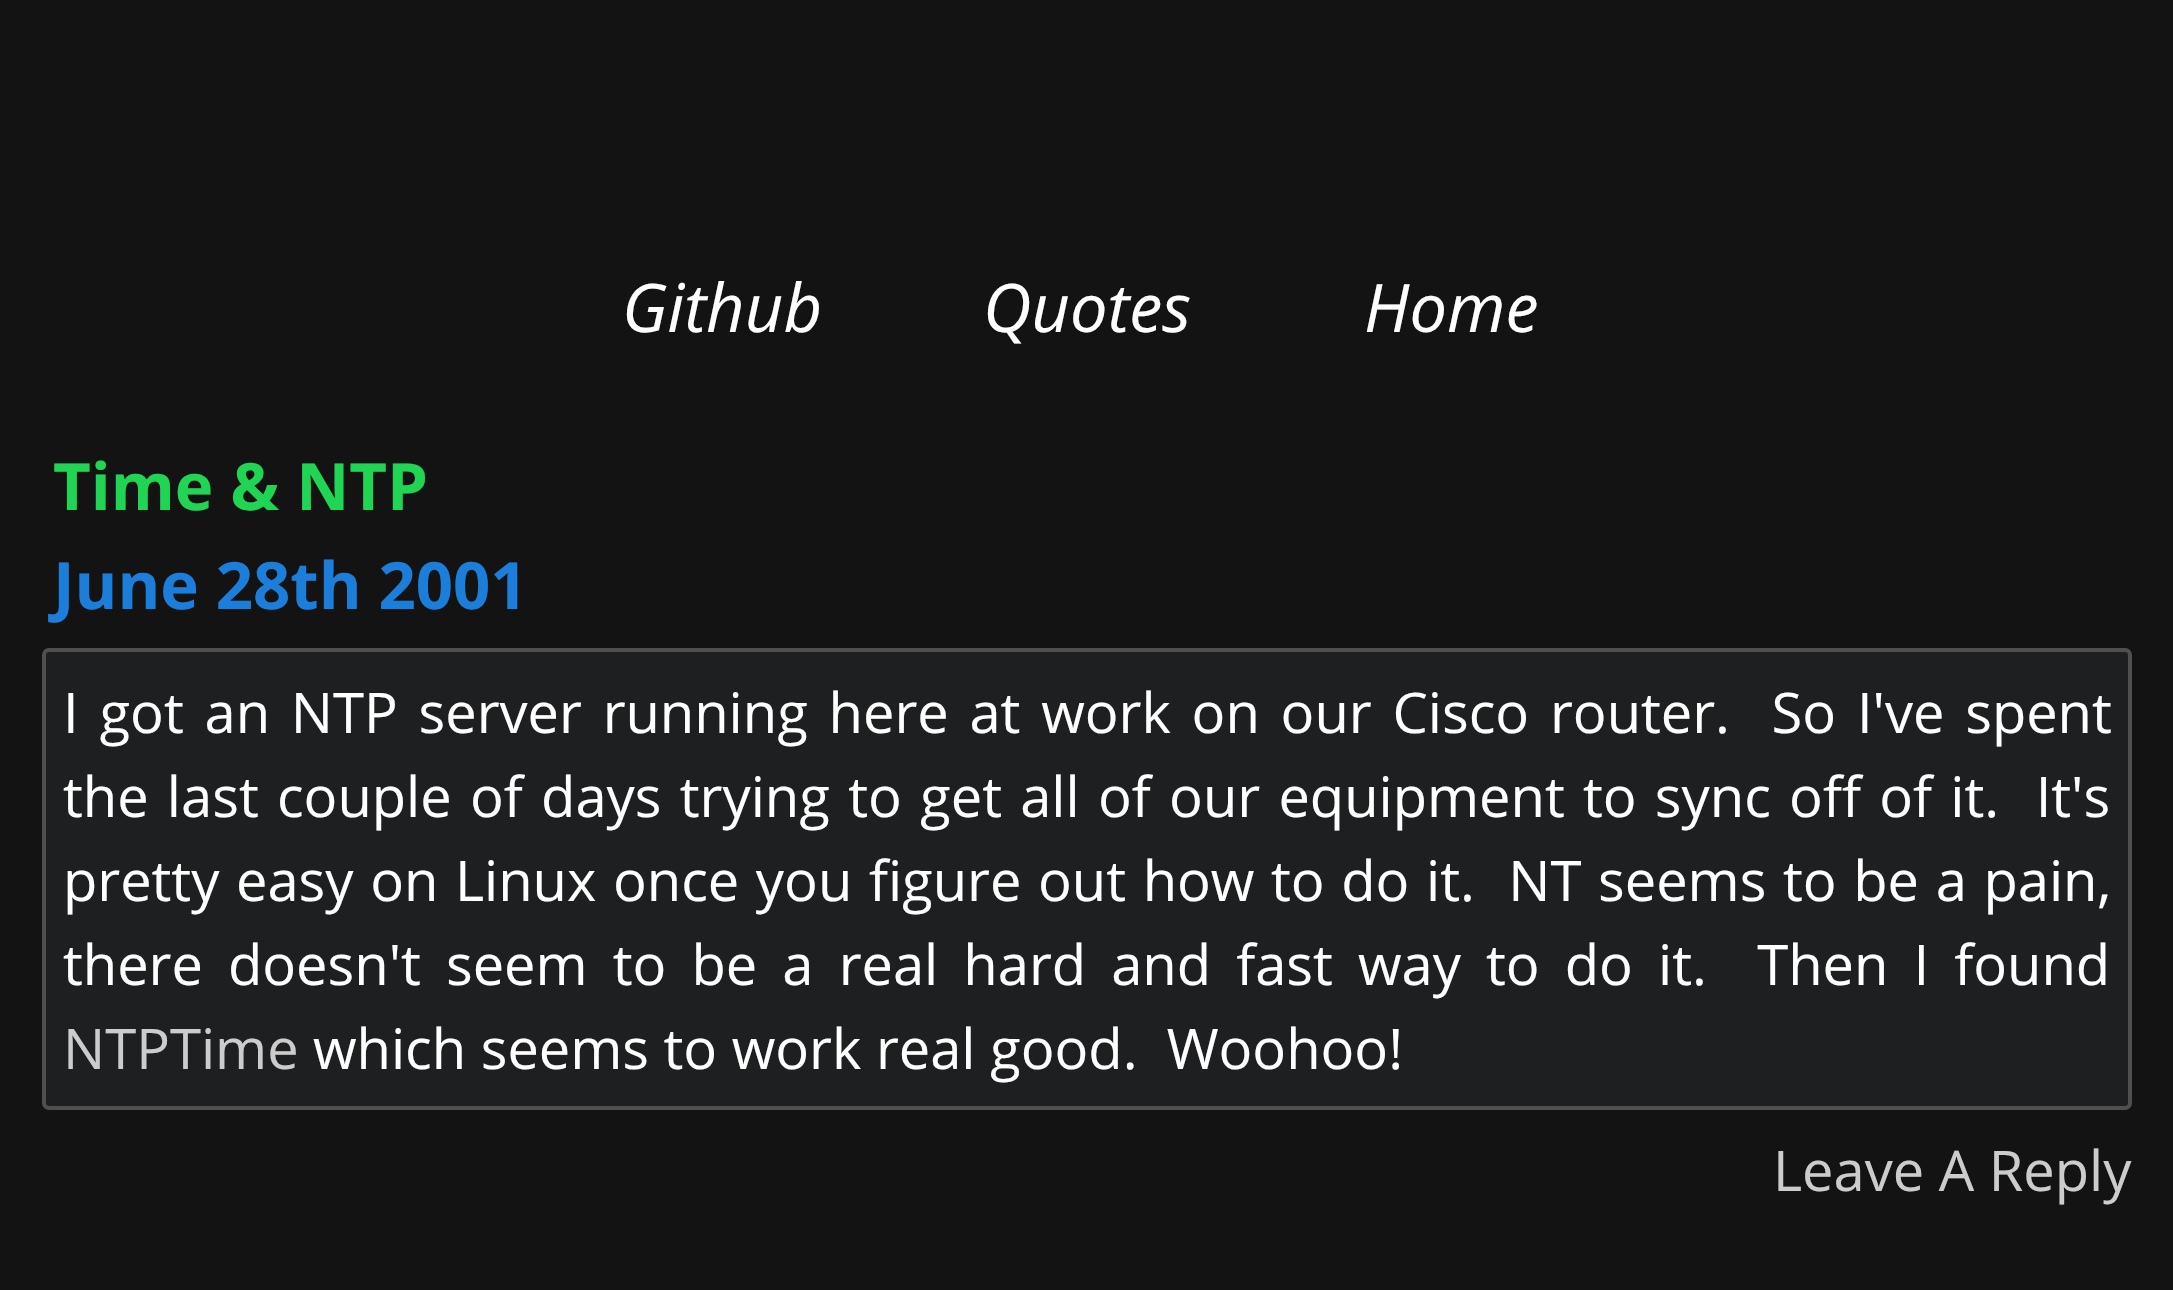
void draw(SkCanvas* canvas) {
    SkPaint paint;
    paint.setAntiAlias(true);
    auto face = [&](const char* family, int weight, float size, bool italic = false) {
        SkFontStyle style(weight, SkFontStyle::kNormal_Width,
            italic ? SkFontStyle::kItalic_Slant : SkFontStyle::kUpright_Slant);
        SkFont result(fontMgr->matchFamilyStyle(family, style), size);
        result.setSubpixel(true);
        return result;
    };
    auto write = [&](const char* s, float x, float y, const SkFont& font, SkColor color) {
        SkPaint ink(SkColor4f::FromColor(color));
        ink.setAntiAlias(true);
        canvas->drawString(s, x, y, font, ink);
    };
    auto writeSpaced = [&](const char* s, float x, float y, const SkFont& font, const SkPaint& ink, float letter, float word) {
        std::vector<SkGlyphID> glyphs(font.countText(s, strlen(s), SkTextEncoding::kUTF8));
        std::vector<float> xs(glyphs.size());
        font.textToGlyphs(s, strlen(s), SkTextEncoding::kUTF8, glyphs);
        font.getXPos(glyphs, xs, x);
        float extra = 0;
        for (size_t i = 0; i < glyphs.size(); i++) {
            xs[i] += extra;
            extra += letter + word * (glyphs[i] == font.unicharToGlyph(' '));
        }
        canvas->drawTextBlob(SkTextBlob::MakeFromPosHGlyphs(glyphs, xs, y, font), 0, 0, ink);
    };
    canvas->clear(SkColorSetRGB(19, 19, 19));
    auto kFont1 = face("Open Sans", 400, 67, true);
    write("Github", 622, 332, kFont1, SK_ColorWHITE);
    write("Quotes", 983, 332, kFont1, SK_ColorWHITE);
    write("Home", 1364, 332, kFont1, SK_ColorWHITE);
    auto kFont2 = face("Open Sans", 700, 65.25f);
    write("Time & NTP", 53, 510, kFont2, SkColorSetRGB(32, 213, 83));
    write("June 28th 2001", 53, 609, kFont2, SkColorSetRGB(27, 126, 218));
    paint.setColor(SkColorSetRGB(30, 31, 33));
    canvas->drawRoundRect(SkRect::MakeXYWH(44, 650, 2086, 458), 5, 5, paint);
    paint.setStyle(SkPaint::kStroke_Style);
    paint.setStrokeWidth(4);
    paint.setColor(SkColorSetRGB(79, 79, 79));
    canvas->drawRoundRect(SkRect::MakeXYWH(44, 650, 2086, 458), 5, 5, paint);
    auto kFont3 = face("Open Sans", 400, 56);
    paint.setStyle(SkPaint::kFill_Style);
    paint.setColor(SK_ColorWHITE);
    writeSpaced("I got an NTP server running here at work on our Cisco router.  So I've spent", 63, 733, kFont3, paint, 0, 6.25f);
    writeSpaced("the last couple of days trying to get all of our equipment to sync off of it.  It's", 63, 817, kFont3, paint, 0, 3.75f);
    writeSpaced("pretty easy on Linux once you figure out how to do it.  NT seems to be a pain,", 63, 901, kFont3, paint, 0, 2.1f);
    writeSpaced("there doesn't seem to be a real hard and fast way to do it.  Then I found", 63, 985, kFont3, paint, 0, 10.6f);
    write("NTPTime", 63, 1069, kFont3, SkColorSetRGB(204, 204, 204));
    write("which seems to work real good.  Woohoo!", 313, 1069, kFont3, SK_ColorWHITE);
    write("Leave A Reply", 1773, 1191, kFont3, SkColorSetRGB(204, 204, 204));
}
